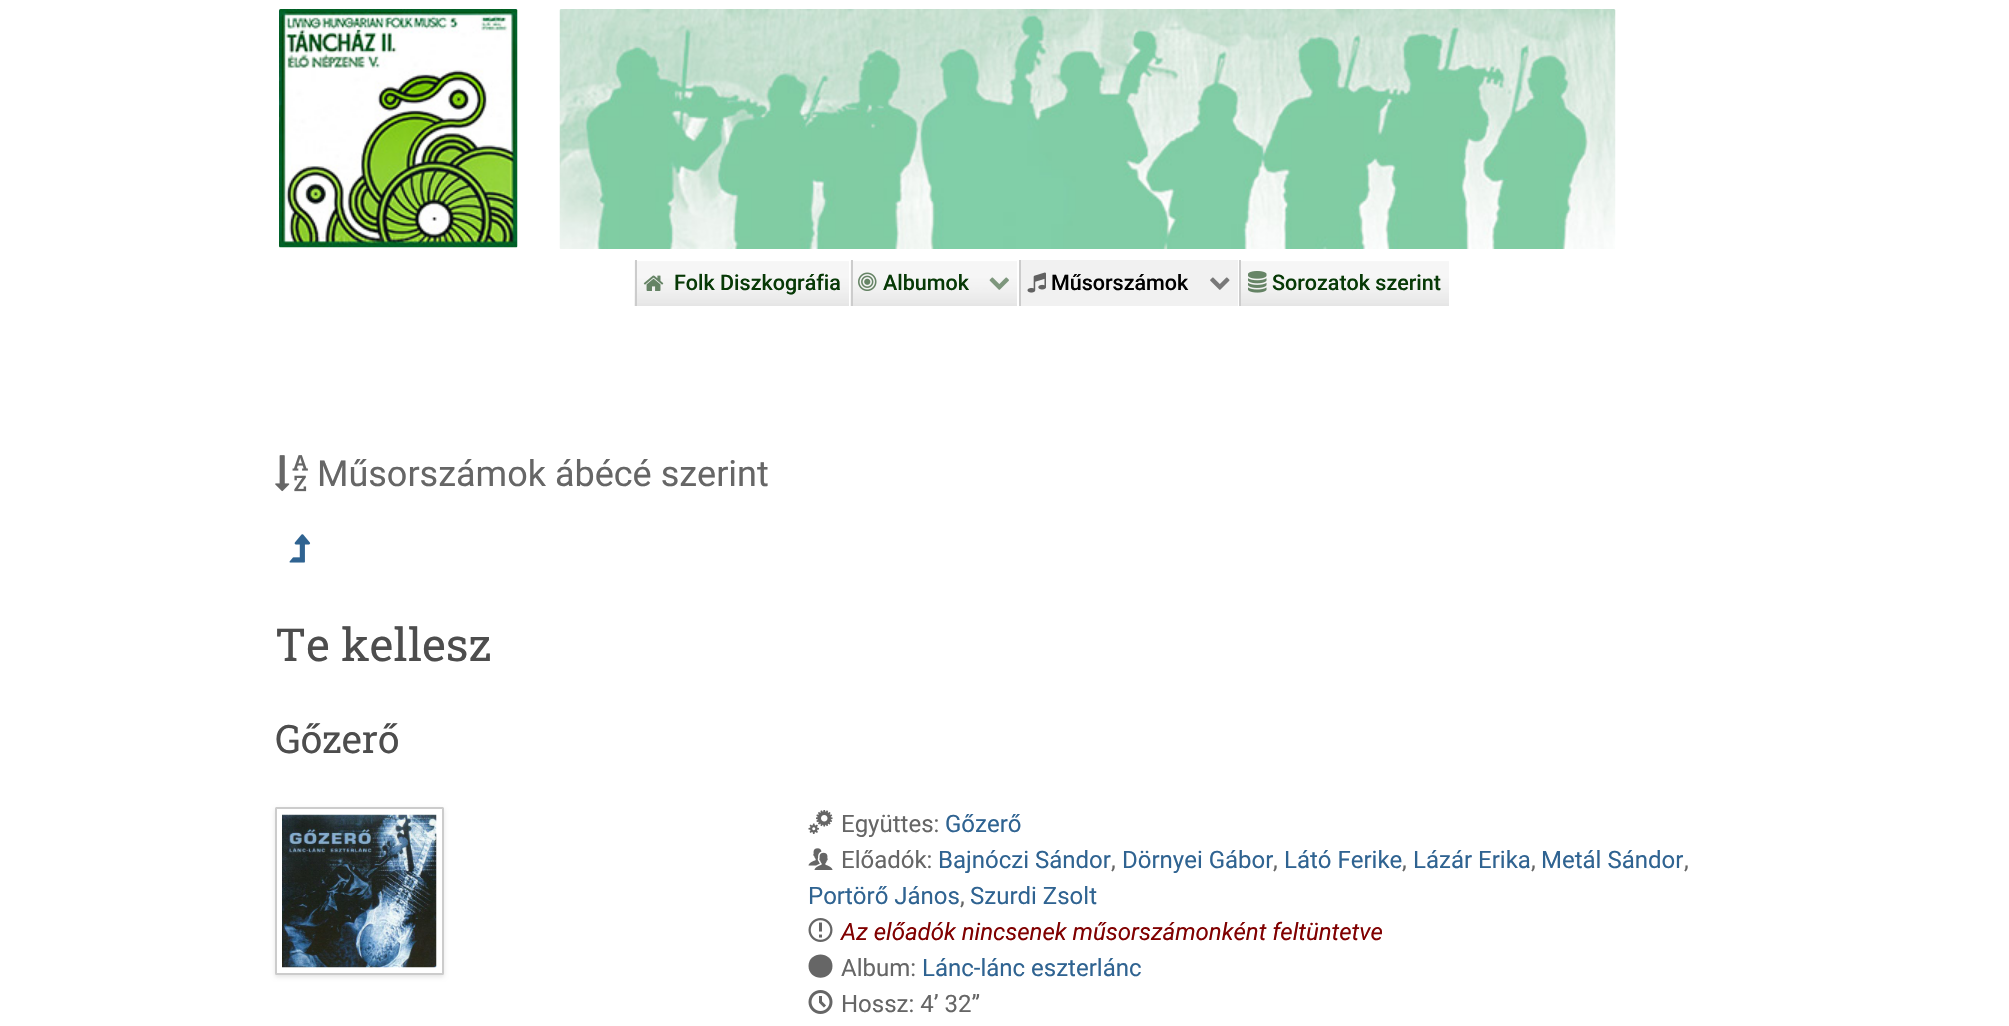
void draw(SkCanvas* canvas) {
    SkPaint paint;
    paint.setAntiAlias(true);
    auto face = [&](const char* family, int weight, float size, bool italic = false) {
        SkFontStyle style(weight, SkFontStyle::kNormal_Width,
            italic ? SkFontStyle::kItalic_Slant : SkFontStyle::kUpright_Slant);
        SkFont result(fontMgr->matchFamilyStyle(family, style), size);
        result.setSubpixel(true);
        return result;
    };
    auto write = [&](const char* s, float x, float y, const SkFont& font, SkColor color) {
        SkPaint ink(SkColor4f::FromColor(color));
        ink.setAntiAlias(true);
        canvas->drawString(s, x, y, font, ink);
    };
    auto block = [&](float x, float y, float w, float h, SkColor color) {
        SkPaint ink(SkColor4f::FromColor(color));
        ink.setAntiAlias(true);
        canvas->drawRect(SkRect::MakeXYWH(x, y, w, h), ink);
    };
    auto card = [&](float x, float y, float w, float h, float radius, SkColor color) {
        SkPaint ink(SkColor4f::FromColor(color));
        ink.setAntiAlias(true);
        canvas->drawRoundRect(SkRect::MakeXYWH(x, y, w, h), radius, radius, ink);
    };
    auto paste = [&](const char* path, float x, float y, float w, float h) {
        auto image = SkImages::DeferredFromEncodedData(SkData::MakeFromFileName(path));
        canvas->drawImageRect(image, SkRect::MakeXYWH(x, y, w, h), SkSamplingOptions());
    };
    canvas->clear(SK_ColorWHITE);
    paste("pic1.png", 279, 9, 239, 239);
    paste("pic2.png", 559, 9, 1057, 240);
    paste("pic3.png", 634, 261, 215, 45);
    block(635, 260, 2, 46, SkColorSetRGB(204, 204, 204));
    paste("pic4.png", 643, 275, 21, 16);
    auto kFont1 = face("Roboto", 500, 21.5f);
    write("Folk Diszkográfia", 674, 290, kFont1, SkColorSetRGB(7, 57, 6));
    paste("pic5.png", 850, 261, 167, 45);
    block(851, 260, 2, 46, SkColorSetRGB(204, 204, 204));
    paste("pic6.png", 858, 272, 19, 19);
    write("Albumok", 883, 290, kFont1, SkColorSetRGB(7, 57, 6));
    paste("pic7.png", 989, 277, 20, 13);
    block(1021, 260, 217, 46, SkColorSetRGB(241, 241, 241));
    block(1019, 260, 2, 46, SkColorSetRGB(204, 204, 204));
    paste("pic8.png", 1027, 272, 19, 21);
    write("Műsorszámok", 1051, 290, kFont1, SK_ColorBLACK);
    paste("pic9.png", 1210, 277, 20, 13);
    paste("pic10.png", 1241, 261, 208, 45);
    block(1239, 260, 2, 46, SkColorSetRGB(204, 204, 204));
    paste("pic11.png", 1248, 271, 19, 22);
    write("Sorozatok szerint", 1272, 290, kFont1, SkColorSetRGB(7, 57, 6));
    paste("pic12.png", 275, 455, 33, 37);
    auto kFont2 = face("Roboto", 400, 36);
    write("Műsorszámok ábécé szerint", 317, 486, kFont2, SkColorSetRGB(102, 102, 102));
    paste("pic13.png", 289, 534, 22, 29);
    auto kFont3 = face("Roboto Slab", 400, 45.5f);
    write("Te kellesz", 275, 661, kFont3, SkColorSetRGB(77, 77, 77));
    auto kFont4 = face("Roboto Slab", 400, 39);
    write("Gőzerő", 275, 753, kFont4, SkColorSetRGB(77, 77, 77));
    paint.setColor(SkColorSetARGB(26, 0, 0, 0));
    paint.setMaskFilter(SkMaskFilter::MakeBlur(kNormal_SkBlurStyle, 2));
    canvas->drawRoundRect(SkRect::MakeXYWH(275, 809, 169, 168), 1.5f, 1.5f, paint);
    paint.setMaskFilter(nullptr);
    card(275, 807, 169, 168, 1.5f, SK_ColorWHITE);
    paint.setStyle(SkPaint::kStroke_Style);
    paint.setStrokeWidth(2);
    paint.setColor(SkColorSetARGB(51, 0, 0, 0));
    canvas->drawRoundRect(SkRect::MakeXYWH(276, 808, 167, 166), 0.5f, 0.5f, paint);
    paste("pic14.png", 282, 814, 155, 154);
    paste("pic15.png", 808, 810, 25, 24);
    auto kFont5 = face("Roboto", 400, 24);
    write("Együttes:", 841, 832, kFont5, SkColorSetRGB(102, 102, 102));
    write("Gőzerő", 945, 832, kFont5, SkColorSetRGB(47, 99, 145));
    paste("pic16.png", 808, 848, 25, 22);
    write("Előadók:", 841, 868, kFont5, SkColorSetRGB(102, 102, 102));
    write("Bajnóczi Sándor", 938, 868, kFont5, SkColorSetRGB(47, 99, 145));
    write(",", 1111, 868, kFont5, SkColorSetRGB(102, 102, 102));
    write("Dörnyei Gábor", 1122, 868, kFont5, SkColorSetRGB(47, 99, 145));
    write(",", 1273, 868, kFont5, SkColorSetRGB(102, 102, 102));
    write("Látó Ferike", 1284, 868, kFont5, SkColorSetRGB(47, 99, 145));
    write(",", 1402, 868, kFont5, SkColorSetRGB(102, 102, 102));
    write("Lázár Erika", 1413, 868, kFont5, SkColorSetRGB(47, 99, 145));
    write(",", 1531, 868, kFont5, SkColorSetRGB(102, 102, 102));
    write("Metál Sándor", 1541, 868, kFont5, SkColorSetRGB(47, 99, 145));
    write(",", 1684, 868, kFont5, SkColorSetRGB(102, 102, 102));
    write("Portörő János", 808, 904, kFont5, SkColorSetRGB(47, 99, 145));
    write(",", 960, 904, kFont5, SkColorSetRGB(102, 102, 102));
    write("Szurdi Zsolt", 970, 904, kFont5, SkColorSetRGB(47, 99, 145));
    paste("pic17.png", 808, 918, 25, 24);
    auto kFont6 = face("Roboto", 400, 24, true);
    write("Az előadók nincsenek műsorszámonként feltüntetve", 841, 940, kFont6, SkColorSetRGB(128, 0, 0));
    paint.setStyle(SkPaint::kFill_Style);
    paint.setColor(SkColorSetRGB(102, 102, 102));
    canvas->drawPath(SkPathBuilder().moveTo(808.5f, 966).cubicTo(808.5f, 981.5f, 832.5f, 981.5f, 832.5f, 966).cubicTo(832.5f, 950.5f, 808.5f, 950.5f, 808.5f, 966).close().detach(), paint);
    write("Album:", 841, 976, kFont5, SkColorSetRGB(102, 102, 102));
    write("Lánc-lánc eszterlánc", 922, 976, kFont5, SkColorSetRGB(47, 99, 145));
    paste("pic18.png", 808, 990, 25, 24);
    write("Hossz: 4’ 32”", 841, 1012, kFont5, SkColorSetRGB(102, 102, 102));
}
